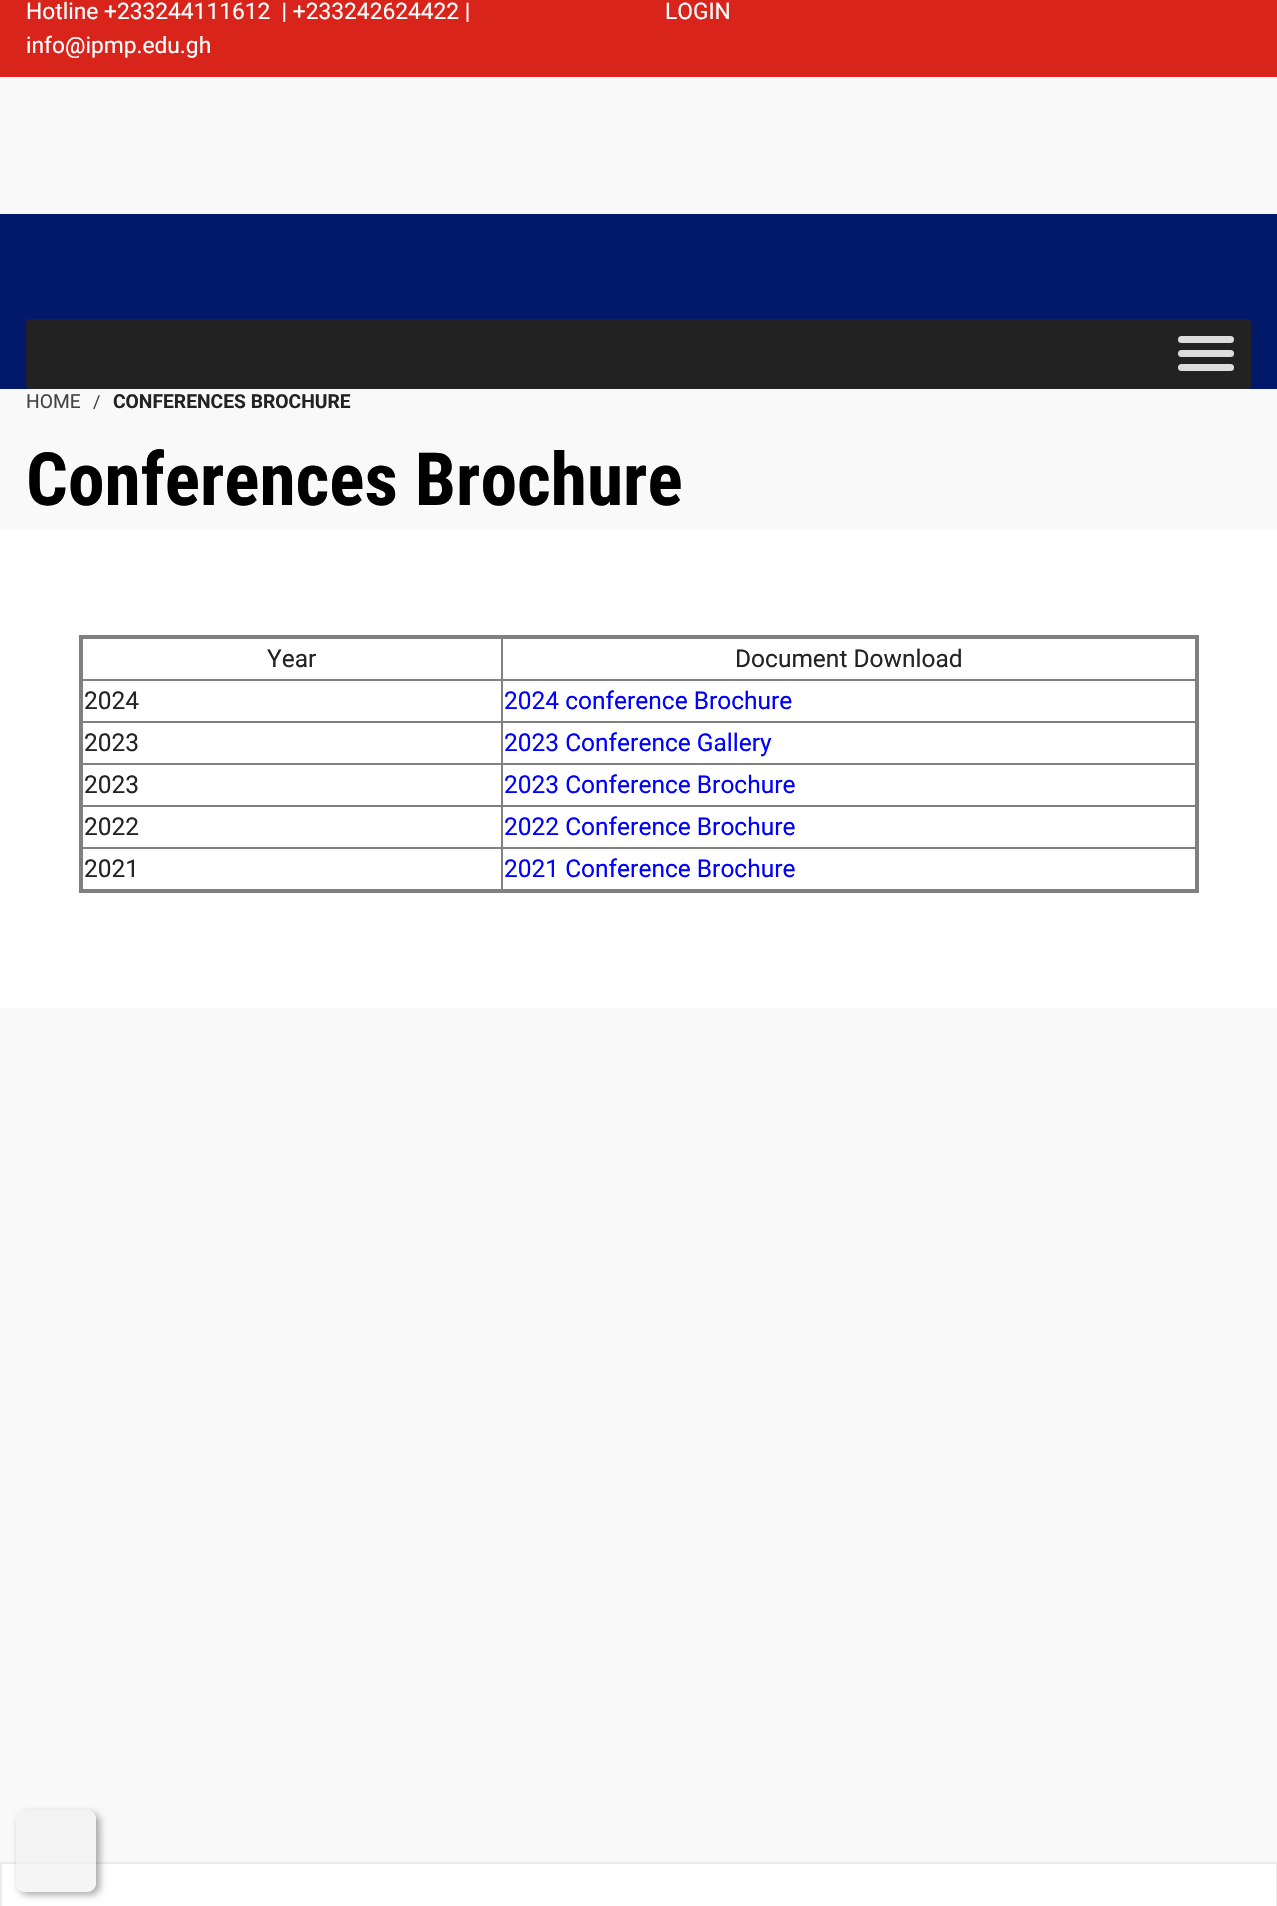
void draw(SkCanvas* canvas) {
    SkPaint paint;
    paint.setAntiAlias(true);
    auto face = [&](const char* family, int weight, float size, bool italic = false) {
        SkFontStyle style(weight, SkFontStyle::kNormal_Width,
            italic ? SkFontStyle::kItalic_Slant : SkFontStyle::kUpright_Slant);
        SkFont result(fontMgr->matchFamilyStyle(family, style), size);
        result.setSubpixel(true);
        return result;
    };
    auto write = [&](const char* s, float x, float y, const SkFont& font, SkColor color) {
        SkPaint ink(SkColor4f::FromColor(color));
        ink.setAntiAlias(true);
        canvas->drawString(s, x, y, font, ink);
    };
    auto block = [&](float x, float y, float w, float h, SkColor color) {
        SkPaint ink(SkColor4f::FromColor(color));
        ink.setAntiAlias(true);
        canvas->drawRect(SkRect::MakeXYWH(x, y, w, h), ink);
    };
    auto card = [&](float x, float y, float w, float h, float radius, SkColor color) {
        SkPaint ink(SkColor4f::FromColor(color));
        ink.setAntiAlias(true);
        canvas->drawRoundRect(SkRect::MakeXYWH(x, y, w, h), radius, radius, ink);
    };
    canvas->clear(SkColorSetRGB(249, 249, 249));
    block(0, 0, 1277, 77, SkColorSetRGB(217, 36, 28));
    auto kFont1 = face("Roboto", 400, 22.75f);
    write("Hotline +233244111612  | +233242624422 |", 26, 19, kFont1, SK_ColorWHITE);
    write("info@ipmp.edu.gh", 26, 53, kFont1, SK_ColorWHITE);
    write("LOGIN", 665, 19, kFont1, SK_ColorWHITE);
    block(0, 214, 1277, 175, SkColorSetRGB(2, 24, 107));
    card(26, 319, 1225, 70, 4, SkColorSetRGB(34, 34, 34));
    card(1178, 336, 56, 7, 3.5f, SkColorSetRGB(221, 221, 221));
    card(1178, 350, 56, 7, 3.5f, SkColorSetRGB(221, 221, 221));
    card(1178, 364, 56, 7, 3.5f, SkColorSetRGB(221, 221, 221));
    auto kFont2 = face("Roboto", 400, 19.25f);
    write("HOME", 26, 408, kFont2, SkColorSetRGB(68, 68, 68));
    auto kFont3 = face("Roboto", 400, 18);
    write("/", 93, 408, kFont3, SkColorSetRGB(68, 68, 68));
    auto kFont4 = face("Roboto", 700, 19.25f);
    write("CONFERENCES BROCHURE", 113, 408, kFont4, SkColorSetRGB(35, 35, 35));
    auto kFont5 = face("Roboto Condensed", 700, 73.5f);
    write("Conferences Brochure", 26, 505, kFont5, SK_ColorBLACK);
    block(0, 530, 1277, 478, SK_ColorWHITE);
    block(501, 679, 698, 2, SkColorSetRGB(128, 128, 128));
    block(501, 721, 698, 2, SkColorSetRGB(128, 128, 128));
    block(501, 763, 698, 2, SkColorSetRGB(128, 128, 128));
    block(501, 805, 698, 2, SkColorSetRGB(128, 128, 128));
    block(501, 847, 698, 2, SkColorSetRGB(128, 128, 128));
    block(501, 847, 2, 46, SkColorSetRGB(128, 128, 128));
    block(81, 847, 421, 2, SkColorSetRGB(128, 128, 128));
    block(501, 805, 2, 44, SkColorSetRGB(128, 128, 128));
    block(81, 805, 421, 2, SkColorSetRGB(128, 128, 128));
    block(501, 763, 2, 44, SkColorSetRGB(128, 128, 128));
    block(81, 763, 421, 2, SkColorSetRGB(128, 128, 128));
    block(501, 721, 2, 44, SkColorSetRGB(128, 128, 128));
    block(81, 721, 421, 2, SkColorSetRGB(128, 128, 128));
    block(501, 679, 2, 44, SkColorSetRGB(128, 128, 128));
    block(81, 679, 421, 2, SkColorSetRGB(128, 128, 128));
    block(501, 637, 2, 44, SkColorSetRGB(128, 128, 128));
    block(79, 635, 1120, 4, SkColorSetRGB(128, 128, 128));
    block(1195, 635, 4, 258, SkColorSetRGB(128, 128, 128));
    block(79, 889, 1120, 4, SkColorSetRGB(128, 128, 128));
    block(79, 635, 4, 258, SkColorSetRGB(128, 128, 128));
    auto kFont6 = face("Roboto", 400, 24.5f);
    write("Year", 267, 667, kFont6, SkColorSetRGB(35, 35, 35));
    write("Document Download", 735, 667, kFont6, SkColorSetRGB(35, 35, 35));
    write("2024", 84, 709, kFont6, SkColorSetRGB(35, 35, 35));
    write("2024 conference Brochure", 504, 709, kFont6, SkColorSetRGB(0, 0, 255));
    write("2023", 84, 751, kFont6, SkColorSetRGB(35, 35, 35));
    write("2023 Conference Gallery", 504, 751, kFont6, SkColorSetRGB(0, 0, 255));
    write("2023", 84, 793, kFont6, SkColorSetRGB(35, 35, 35));
    write("2023 Conference Brochure", 504, 793, kFont6, SkColorSetRGB(0, 0, 255));
    write("2022", 84, 835, kFont6, SkColorSetRGB(35, 35, 35));
    write("2022 Conference Brochure", 504, 835, kFont6, SkColorSetRGB(0, 0, 255));
    write("2021", 84, 877, kFont6, SkColorSetRGB(35, 35, 35));
    write("2021 Conference Brochure", 504, 877, kFont6, SkColorSetRGB(0, 0, 255));
    paint.setColor(SK_ColorWHITE);
    canvas->drawRect(SkRect::MakeXYWH(1, 1863, 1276, 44), paint);
    paint.setStyle(SkPaint::kStroke_Style);
    paint.setStrokeWidth(2);
    paint.setColor(SkColorSetRGB(235, 235, 235));
    canvas->drawRect(SkRect::MakeXYWH(1, 1863, 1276, 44), paint);
    canvas->save();
    canvas->clipPath(SkPathBuilder(SkPathFillType::kEvenOdd).moveTo(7, 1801).lineTo(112, 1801).lineTo(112, 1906).lineTo(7, 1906).close().moveTo(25, 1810).lineTo(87, 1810).cubicTo(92, 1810, 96, 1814, 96, 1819).lineTo(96, 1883).cubicTo(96, 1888, 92, 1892, 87, 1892).lineTo(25, 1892).cubicTo(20, 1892, 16, 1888, 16, 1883).lineTo(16, 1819).cubicTo(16, 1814, 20, 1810, 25, 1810).close().detach(), true);
    paint.setStyle(SkPaint::kFill_Style);
    paint.setColor(SkColorSetARGB(84, 0, 0, 0));
    paint.setMaskFilter(SkMaskFilter::MakeBlur(kNormal_SkBlurStyle, 3.5f));
    canvas->drawRoundRect(SkRect::MakeXYWH(19, 1813, 81, 82), 9, 9, paint);
    paint.setMaskFilter(nullptr);
    canvas->restore();
    card(16, 1810, 80, 82, 9, SkColorSetARGB(176, 241, 241, 241));
}
